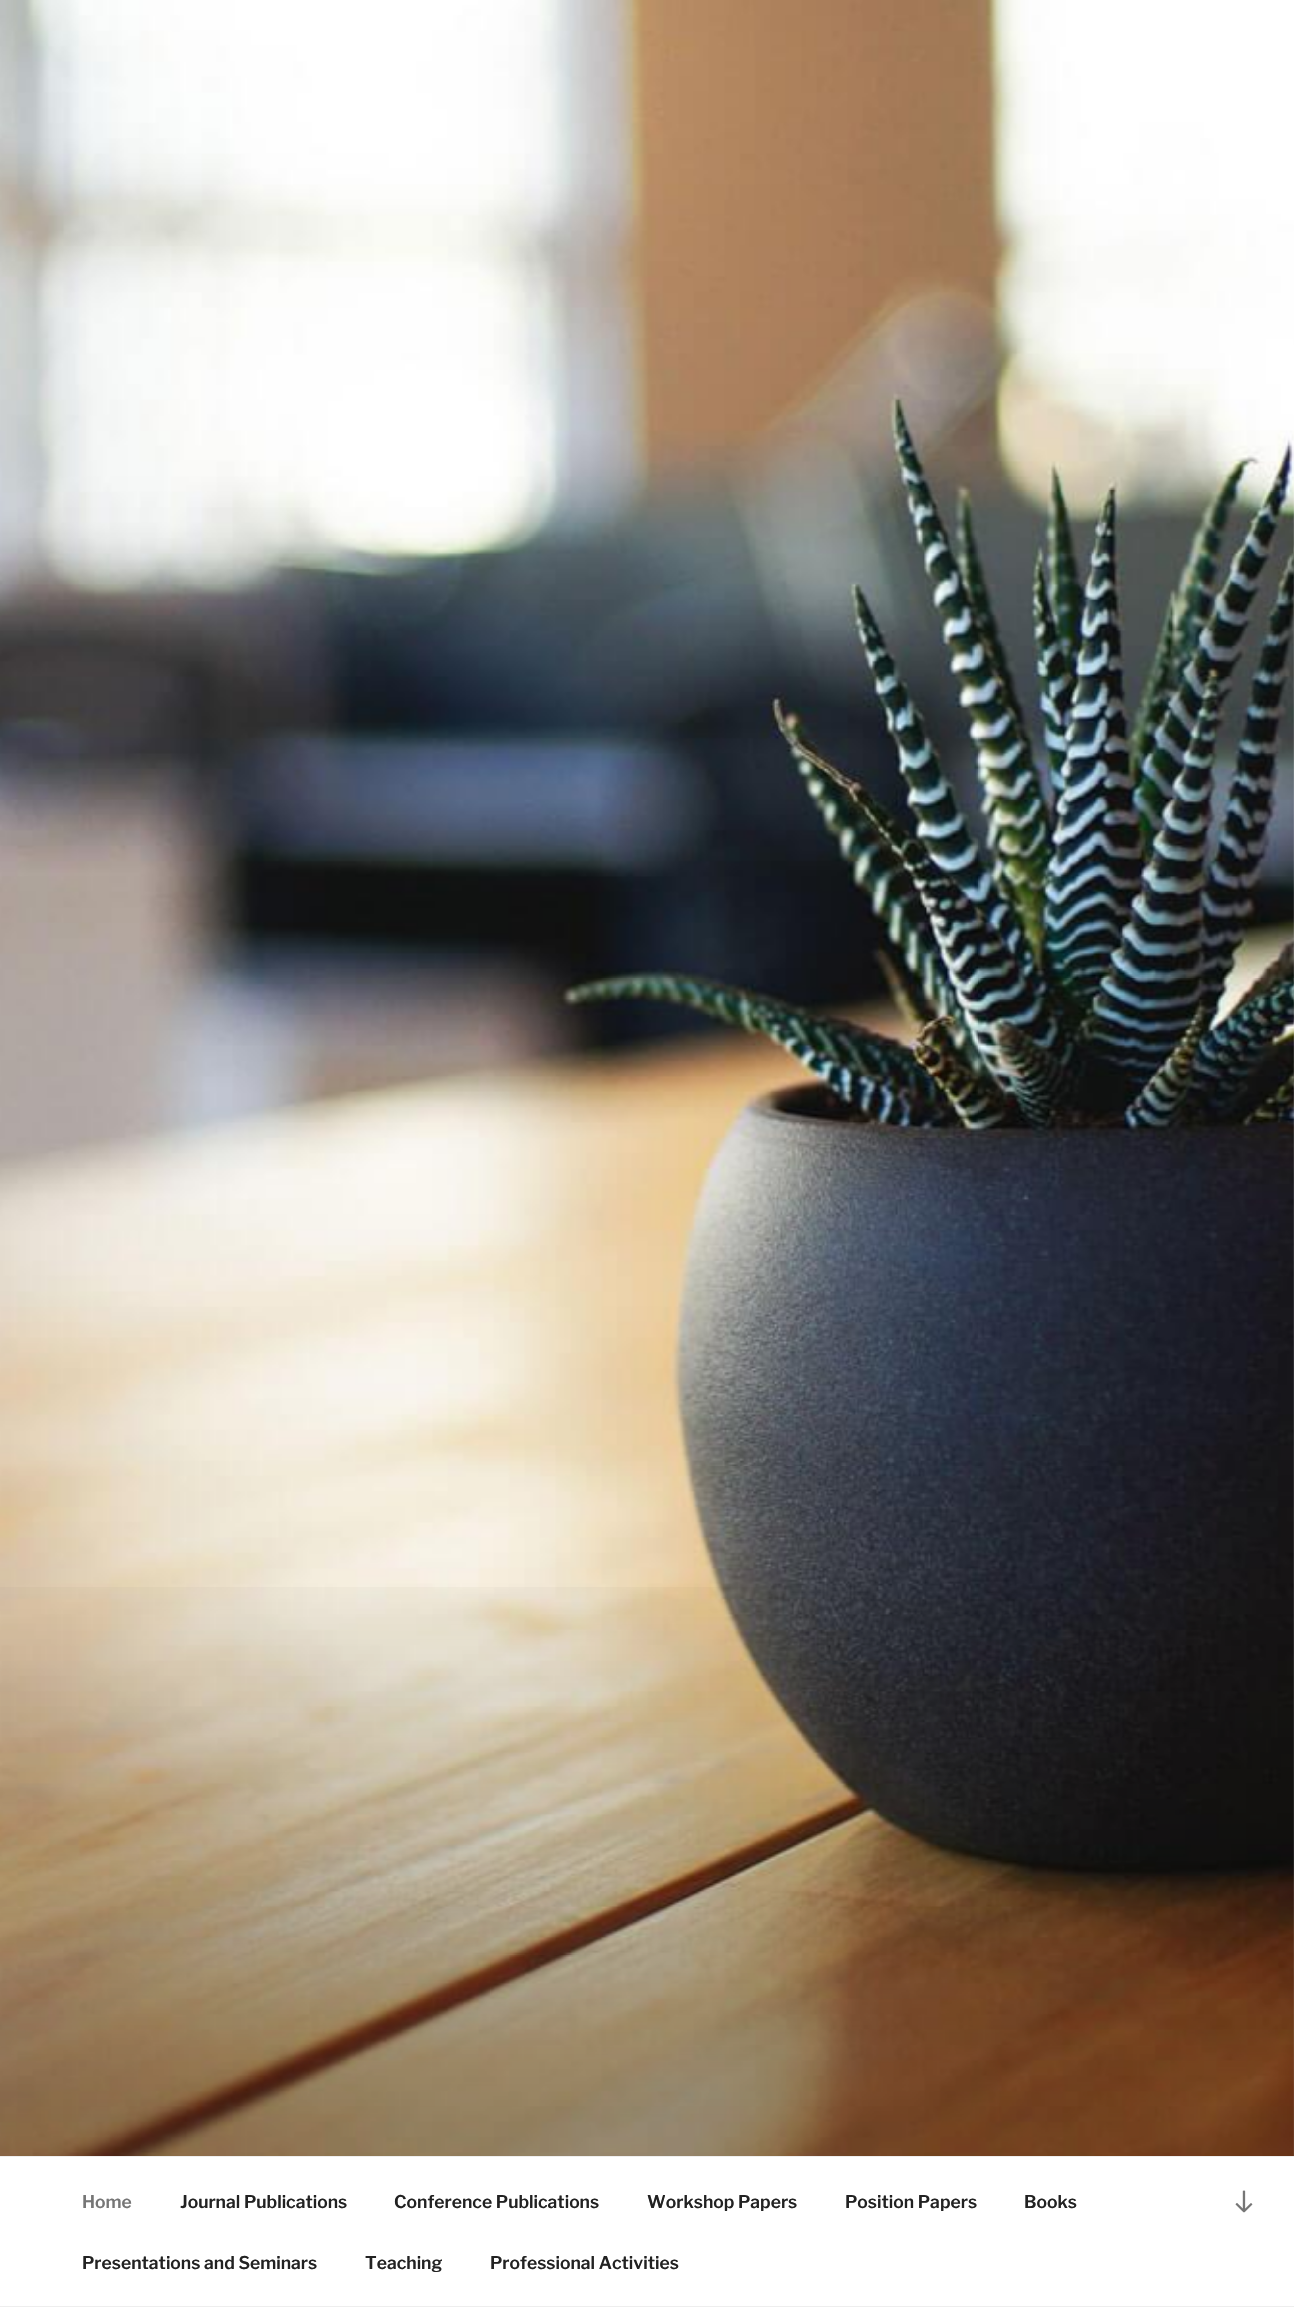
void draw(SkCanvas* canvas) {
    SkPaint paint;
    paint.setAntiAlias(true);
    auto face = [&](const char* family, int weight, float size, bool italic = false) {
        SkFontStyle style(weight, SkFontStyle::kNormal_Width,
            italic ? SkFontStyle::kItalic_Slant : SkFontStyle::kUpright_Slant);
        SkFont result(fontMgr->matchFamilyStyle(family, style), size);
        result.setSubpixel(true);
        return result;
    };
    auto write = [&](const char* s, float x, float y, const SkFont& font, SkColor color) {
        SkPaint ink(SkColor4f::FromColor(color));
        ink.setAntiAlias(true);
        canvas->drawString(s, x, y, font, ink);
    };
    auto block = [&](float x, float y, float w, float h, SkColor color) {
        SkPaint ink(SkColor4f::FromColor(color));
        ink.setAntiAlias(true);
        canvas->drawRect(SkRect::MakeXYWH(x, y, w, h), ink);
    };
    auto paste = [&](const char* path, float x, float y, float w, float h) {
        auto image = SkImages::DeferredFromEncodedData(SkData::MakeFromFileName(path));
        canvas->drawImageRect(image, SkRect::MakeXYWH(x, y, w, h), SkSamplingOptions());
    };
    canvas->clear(SK_ColorWHITE);
    paste("pic1.png", 0, 0, 1294, 2156);
    {
        const SkColor colors[] = {SkColorSetARGB(0, 0, 0, 0), SkColorSetARGB(77, 0, 0, 0), SkColorSetARGB(77, 0, 0, 0)};
        const float stops[] = {0, 0.75f, 1};
        const SkPoint ends[] = {{648, 1546}, {648, 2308}};
        paint.setShader(SkGradientShader::MakeLinear(ends, colors, stops, 3, SkTileMode::kClamp));
        paint.setAlpha(255);
    }
    canvas->drawRect(SkRect::MakeXYWH(0, 1587, 1294, 569), paint);
    block(0, 2156, 1294, 1, SkColorSetRGB(238, 238, 238));
    block(0, 2306, 1294, 1, SkColorSetRGB(238, 238, 238));
    auto kFont1 = face("Libre Franklin", 100, 17.5f);
    write("Home", 82, 2208, kFont1, SkColorSetRGB(118, 118, 118));
    write("Journal Publications", 180, 2208, kFont1, SkColorSetRGB(34, 34, 34));
    write("Conference Publications", 394, 2208, kFont1, SkColorSetRGB(34, 34, 34));
    write("Workshop Papers", 647, 2208, kFont1, SkColorSetRGB(34, 34, 34));
    write("Position Papers", 845, 2208, kFont1, SkColorSetRGB(34, 34, 34));
    write("Books", 1024, 2208, kFont1, SkColorSetRGB(34, 34, 34));
    write("Presentations and Seminars", 82, 2269, kFont1, SkColorSetRGB(34, 34, 34));
    write("Teaching", 365, 2269, kFont1, SkColorSetRGB(34, 34, 34));
    write("Professional Activities", 490, 2269, kFont1, SkColorSetRGB(34, 34, 34));
    paste("pic2.png", 1235, 2190, 18, 23);
}
